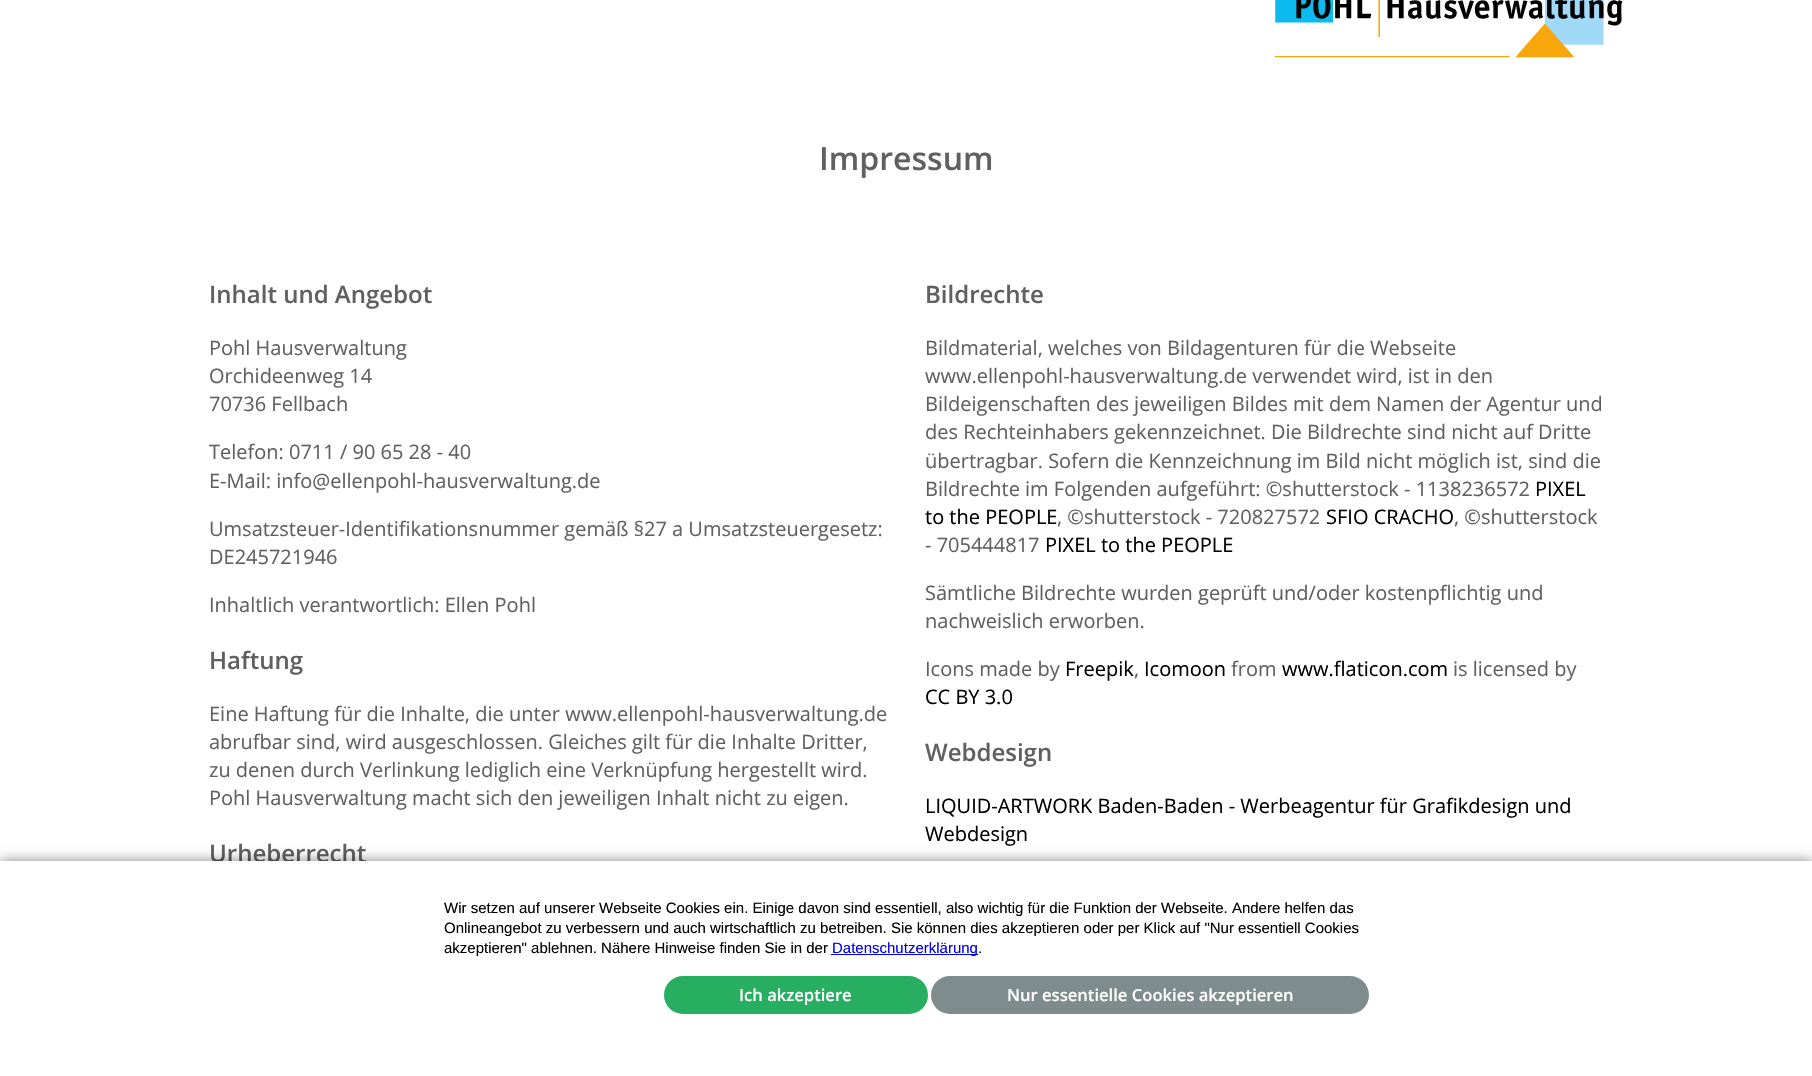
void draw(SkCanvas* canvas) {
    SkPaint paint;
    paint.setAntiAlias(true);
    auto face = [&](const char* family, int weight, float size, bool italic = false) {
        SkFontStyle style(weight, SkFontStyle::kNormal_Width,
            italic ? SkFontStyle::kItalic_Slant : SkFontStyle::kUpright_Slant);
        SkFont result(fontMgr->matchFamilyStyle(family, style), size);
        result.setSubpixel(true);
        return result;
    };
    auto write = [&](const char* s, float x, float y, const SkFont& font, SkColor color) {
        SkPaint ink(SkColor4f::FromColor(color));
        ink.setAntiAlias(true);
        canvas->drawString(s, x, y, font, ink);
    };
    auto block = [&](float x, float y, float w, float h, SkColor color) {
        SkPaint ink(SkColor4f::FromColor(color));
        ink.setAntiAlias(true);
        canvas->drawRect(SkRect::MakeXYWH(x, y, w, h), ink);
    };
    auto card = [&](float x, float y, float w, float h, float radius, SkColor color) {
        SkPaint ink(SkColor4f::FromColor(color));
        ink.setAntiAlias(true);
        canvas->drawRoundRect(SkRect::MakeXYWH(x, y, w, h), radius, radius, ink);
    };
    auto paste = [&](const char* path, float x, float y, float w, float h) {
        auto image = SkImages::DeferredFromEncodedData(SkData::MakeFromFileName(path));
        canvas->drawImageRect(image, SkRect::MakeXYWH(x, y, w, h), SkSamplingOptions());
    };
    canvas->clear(SK_ColorWHITE);
    paste("pic1.png", 1275, 0, 348, 58);
    auto kFont1 = face("Open Sans", 600, 32);
    write("Impressum", 819, 170, kFont1, SkColorSetRGB(96, 96, 96));
    auto kFont2 = face("Open Sans", 600, 24);
    write("Inhalt und Angebot", 209, 303, kFont2, SkColorSetRGB(96, 96, 96));
    auto kFont3 = face("Open Sans", 400, 20);
    write("Pohl Hausverwaltung", 209, 355, kFont3, SkColorSetRGB(96, 96, 96));
    write("Orchideenweg 14", 209, 383, kFont3, SkColorSetRGB(96, 96, 96));
    write("70736 Fellbach", 209, 411, kFont3, SkColorSetRGB(96, 96, 96));
    write("Telefon: 0711 / 90 65 28 - 40", 209, 459, kFont3, SkColorSetRGB(96, 96, 96));
    write("E-Mail: info@ellenpohl-hausverwaltung.de", 209, 488, kFont3, SkColorSetRGB(96, 96, 96));
    write("Umsatzsteuer-Identifikationsnummer gemäß §27 a Umsatzsteuergesetz:", 209, 536, kFont3, SkColorSetRGB(96, 96, 96));
    write("DE245721946", 209, 564, kFont3, SkColorSetRGB(96, 96, 96));
    write("Inhaltlich verantwortlich: Ellen Pohl", 209, 612, kFont3, SkColorSetRGB(96, 96, 96));
    write("Haftung", 209, 669, kFont2, SkColorSetRGB(96, 96, 96));
    write("Eine Haftung für die Inhalte, die unter www.ellenpohl-hausverwaltung.de", 209, 721, kFont3, SkColorSetRGB(96, 96, 96));
    write("abrufbar sind, wird ausgeschlossen. Gleiches gilt für die Inhalte Dritter,", 209, 749, kFont3, SkColorSetRGB(96, 96, 96));
    write("zu denen durch Verlinkung lediglich eine Verknüpfung hergestellt wird.", 209, 777, kFont3, SkColorSetRGB(96, 96, 96));
    write("Pohl Hausverwaltung macht sich den jeweiligen Inhalt nicht zu eigen.", 209, 805, kFont3, SkColorSetRGB(96, 96, 96));
    write("Urheberrecht", 209, 862, kFont2, SkColorSetRGB(96, 96, 96));
    write("Bildrechte", 925, 303, kFont2, SkColorSetRGB(96, 96, 96));
    write("Bildmaterial, welches von Bildagenturen für die Webseite", 925, 355, kFont3, SkColorSetRGB(96, 96, 96));
    write("www.ellenpohl-hausverwaltung.de verwendet wird, ist in den", 925, 383, kFont3, SkColorSetRGB(96, 96, 96));
    write("Bildeigenschaften des jeweiligen Bildes mit dem Namen der Agentur und", 925, 411, kFont3, SkColorSetRGB(96, 96, 96));
    write("des Rechteinhabers gekennzeichnet. Die Bildrechte sind nicht auf Dritte", 925, 439, kFont3, SkColorSetRGB(96, 96, 96));
    write("übertragbar. Sofern die Kennzeichnung im Bild nicht möglich ist, sind die", 925, 468, kFont3, SkColorSetRGB(96, 96, 96));
    write("Bildrechte im Folgenden aufgeführt: ©shutterstock - 1138236572", 925, 496, kFont3, SkColorSetRGB(96, 96, 96));
    write("PIXEL", 1535, 496, kFont3, SK_ColorBLACK);
    write("to the PEOPLE", 925, 524, kFont3, SK_ColorBLACK);
    write(", ©shutterstock - 720827572", 1057, 524, kFont3, SkColorSetRGB(96, 96, 96));
    write("SFIO CRACHO", 1326, 524, kFont3, SK_ColorBLACK);
    write(", ©shutterstock", 1454, 524, kFont3, SkColorSetRGB(96, 96, 96));
    write("- 705444817", 925, 552, kFont3, SkColorSetRGB(96, 96, 96));
    write("PIXEL to the PEOPLE", 1045, 552, kFont3, SK_ColorBLACK);
    write("Sämtliche Bildrechte wurden geprüft und/oder kostenpflichtig und", 925, 600, kFont3, SkColorSetRGB(96, 96, 96));
    write("nachweislich erworben.", 925, 628, kFont3, SkColorSetRGB(96, 96, 96));
    write("Icons made by", 925, 676, kFont3, SkColorSetRGB(96, 96, 96));
    write("Freepik", 1065, 676, kFont3, SK_ColorBLACK);
    write(",", 1134, 676, kFont3, SkColorSetRGB(96, 96, 96));
    write("Icomoon", 1144, 676, kFont3, SK_ColorBLACK);
    write("from", 1231, 676, kFont3, SkColorSetRGB(96, 96, 96));
    write("www.flaticon.com", 1282, 676, kFont3, SK_ColorBLACK);
    write("is licensed by", 1453, 676, kFont3, SkColorSetRGB(96, 96, 96));
    write("CC BY 3.0", 925, 704, kFont3, SK_ColorBLACK);
    write("Webdesign", 925, 761, kFont2, SkColorSetRGB(96, 96, 96));
    write("LIQUID-ARTWORK Baden-Baden - Werbeagentur für Grafikdesign und", 925, 813, kFont3, SK_ColorBLACK);
    write("Webdesign", 925, 841, kFont3, SK_ColorBLACK);
    paint.setColor(SkColorSetARGB(128, 0, 0, 0));
    paint.setMaskFilter(SkMaskFilter::MakeBlur(kNormal_SkBlurStyle, 6));
    canvas->drawRect(SkRect::MakeXYWH(0, 861, 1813, 215), paint);
    paint.setMaskFilter(nullptr);
    block(0, 861, 1812, 215, SK_ColorWHITE);
    auto kFont4 = face("Liberation Sans", 400, 15);
    write("Wir setzen auf unserer Webseite Cookies ein. Einige davon sind essentiell, also wichtig für die Funktion der Webseite. Andere helfen das", 444, 913, kFont4, SK_ColorBLACK);
    write("Onlineangebot zu verbessern und auch wirtschaftlich zu betreiben. Sie können dies akzeptieren oder per Klick auf \"Nur essentiell Cookies", 444, 933, kFont4, SK_ColorBLACK);
    write("akzeptieren\" ablehnen. Nähere Hinweise finden Sie in der", 444, 953, kFont4, SK_ColorBLACK);
    block(831, 954, 147, 1, SkColorSetRGB(0, 0, 238));
    write("Datenschutzerklärung", 832, 953, kFont4, SkColorSetRGB(0, 0, 238));
    write(".", 978, 953, kFont4, SK_ColorBLACK);
    card(664, 976, 264, 38, 19, SkColorSetRGB(39, 174, 96));
    auto kFont5 = face("Open Sans", 600, 16.6f);
    write("Ich akzeptiere", 739, 1001, kFont5, SK_ColorWHITE);
    card(931, 976, 438, 38, 19, SkColorSetRGB(127, 140, 141));
    write("Nur essentielle Cookies akzeptieren", 1007, 1001, kFont5, SK_ColorWHITE);
}
